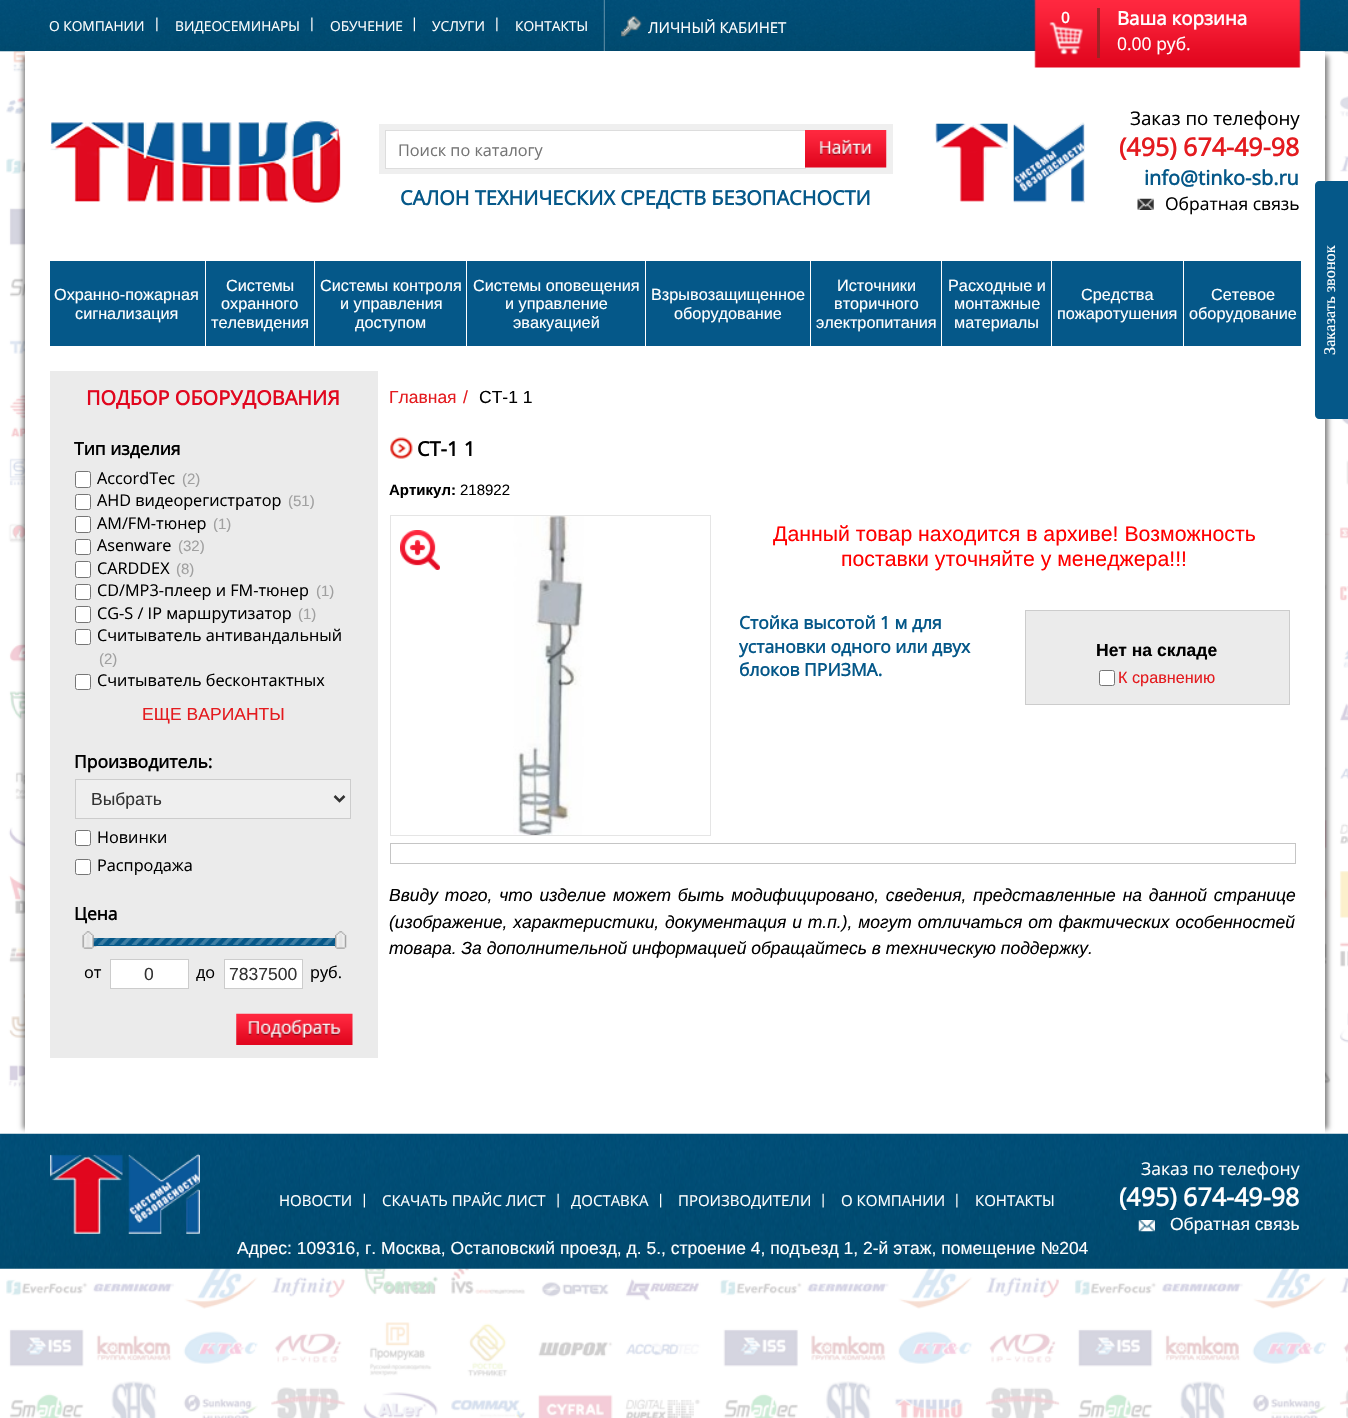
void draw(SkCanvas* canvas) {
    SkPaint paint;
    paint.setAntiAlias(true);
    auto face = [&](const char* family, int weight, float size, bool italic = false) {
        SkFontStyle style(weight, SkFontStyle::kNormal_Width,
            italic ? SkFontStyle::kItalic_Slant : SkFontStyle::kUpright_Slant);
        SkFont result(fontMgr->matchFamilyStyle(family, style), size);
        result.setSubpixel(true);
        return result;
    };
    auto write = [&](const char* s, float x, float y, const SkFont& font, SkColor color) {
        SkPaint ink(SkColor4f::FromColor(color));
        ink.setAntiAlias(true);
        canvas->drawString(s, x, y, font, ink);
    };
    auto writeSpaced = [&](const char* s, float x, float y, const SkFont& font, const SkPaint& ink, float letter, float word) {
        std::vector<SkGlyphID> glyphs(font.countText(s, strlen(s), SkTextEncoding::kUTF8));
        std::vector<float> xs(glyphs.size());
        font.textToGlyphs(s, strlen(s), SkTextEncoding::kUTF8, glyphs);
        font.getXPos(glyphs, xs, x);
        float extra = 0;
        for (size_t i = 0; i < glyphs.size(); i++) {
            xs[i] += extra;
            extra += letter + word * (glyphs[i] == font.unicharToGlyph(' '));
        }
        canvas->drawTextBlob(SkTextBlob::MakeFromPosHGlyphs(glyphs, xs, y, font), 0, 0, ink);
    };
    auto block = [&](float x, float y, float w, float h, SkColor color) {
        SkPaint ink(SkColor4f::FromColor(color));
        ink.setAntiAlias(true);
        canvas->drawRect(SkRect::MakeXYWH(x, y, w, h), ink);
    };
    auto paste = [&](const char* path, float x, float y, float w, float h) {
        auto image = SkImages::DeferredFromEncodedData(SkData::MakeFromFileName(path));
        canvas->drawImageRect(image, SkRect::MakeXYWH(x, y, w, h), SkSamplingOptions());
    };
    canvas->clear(SK_ColorWHITE);
    paste("pic1.png", 6, 51, 1342, 1367);
    paste("pic2.png", 0, 0, 1348, 52);
    paste("pic3.png", 156, 17, 2, 15);
    auto kFont1 = face("Open Sans", 400, 13.75f);
    write("О КОМПАНИИ", 49, 31, kFont1, SK_ColorWHITE);
    paste("pic4.png", 311, 17, 2, 15);
    write("ВИДЕОСЕМИНАРЫ", 175, 31, kFont1, SK_ColorWHITE);
    paste("pic5.png", 413, 17, 2, 15);
    write("ОБУЧЕНИЕ", 330, 31, kFont1, SK_ColorWHITE);
    paste("pic6.png", 496, 17, 2, 15);
    write("УСЛУГИ", 432, 31, kFont1, SK_ColorWHITE);
    write("КОНТАКТЫ", 515, 31, kFont1, SK_ColorWHITE);
    paint.setColor(SkColorSetARGB(128, 0, 0, 0));
    paint.setMaskFilter(SkMaskFilter::MakeBlur(kNormal_SkBlurStyle, 2.5f));
    canvas->drawRect(SkRect::MakeXYWH(38, 56, 1290, 1073), paint);
    paint.setMaskFilter(nullptr);
    paint.setMaskFilter(SkMaskFilter::MakeBlur(kNormal_SkBlurStyle, 2.5f));
    canvas->drawRect(SkRect::MakeXYWH(23, 56, 1290, 1073), paint);
    paint.setMaskFilter(nullptr);
    paste("pic7.png", 603, 0, 2, 51);
    paste("pic8.png", 621, 16, 21, 21);
    auto kFont2 = face("Open Sans", 400, 15);
    write("ЛИЧНЫЙ КАБИНЕТ", 648, 33, kFont2, SK_ColorWHITE);
    block(25, 51, 1300, 1083, SK_ColorWHITE);
    paste("pic9.png", 1034, 0, 267, 68);
    block(1097, 8, 3, 50, SkColorSetARGB(222, 146, 37, 37));
    auto kFont3 = face("Open Sans", 700, 15);
    write("0", 1061, 23, kFont3, SK_ColorWHITE);
    paste("pic10.png", 1049, 22, 34, 33);
    auto kFont4 = face("Open Sans", 700, 18.75f);
    write("Ваша корзина", 1117, 25, kFont4, SK_ColorWHITE);
    auto kFont5 = face("Open Sans", 400, 17.5f);
    write("0.00 руб.", 1117, 50, kFont5, SK_ColorWHITE);
    paste("pic11.png", 50, 120, 291, 83);
    block(379, 124, 514, 50, SkColorSetRGB(239, 239, 239));
    paint.setColor(SK_ColorWHITE);
    canvas->drawRect(SkRect::MakeXYWH(385.5f, 130.5f, 420, 38), paint);
    paint.setStyle(SkPaint::kStroke_Style);
    paint.setStrokeWidth(1);
    paint.setColor(SkColorSetRGB(221, 221, 221));
    canvas->drawRect(SkRect::MakeXYWH(385.5f, 130.5f, 420, 38), paint);
    auto kFont6 = face("Open Sans", 400, 16.25f);
    write("Поиск по каталогу", 398, 156, kFont6, SkColorSetRGB(117, 117, 117));
    paste("pic12.png", 805, 130, 82, 38);
    auto kFont7 = face("Open Sans", 700, 20);
    write("САЛОН ТЕХНИЧЕСКИХ СРЕДСТВ БЕЗОПАСНОСТИ", 400, 205, kFont7, SkColorSetRGB(5, 88, 137));
    paste("pic13.png", 935, 122, 150, 81);
    auto kFont8 = face("Open Sans", 400, 18.75f);
    write("Заказ по телефону", 1130, 125, kFont8, SK_ColorBLACK);
    auto kFont9 = face("Open Sans", 700, 25);
    write("(495) 674-49-98", 1119, 156, kFont9, SkColorSetRGB(228, 27, 31));
    write("info@tinko-sb.ru", 1144, 185, kFont7, SkColorSetRGB(5, 88, 137));
    paste("pic14.png", 1137, 198, 17, 12);
    write("Обратная связь", 1165, 210, kFont5, SK_ColorBLACK);
    block(50, 261, 1251, 85, SkColorSetRGB(5, 88, 137));
    block(205, 261, 1, 85, SK_ColorWHITE);
    auto kFont10 = face("Liberation Sans", 400, 16.25f);
    write("Охранно-пожарная", 54, 300, kFont10, SK_ColorWHITE);
    write("сигнализация", 75, 319, kFont10, SK_ColorWHITE);
    block(314, 261, 1, 85, SK_ColorWHITE);
    write("Системы", 226, 291, kFont10, SK_ColorWHITE);
    write("охранного", 221, 309, kFont10, SK_ColorWHITE);
    write("телевидения", 211, 328, kFont10, SK_ColorWHITE);
    block(466, 261, 1, 85, SK_ColorWHITE);
    write("Системы контроля", 320, 291, kFont10, SK_ColorWHITE);
    write("и управления", 340, 309, kFont10, SK_ColorWHITE);
    write("доступом", 355, 328, kFont10, SK_ColorWHITE);
    block(645, 261, 1, 85, SK_ColorWHITE);
    write("Системы оповещения", 473, 291, kFont10, SK_ColorWHITE);
    write("и управление", 505, 309, kFont10, SK_ColorWHITE);
    write("эвакуацией", 513, 328, kFont10, SK_ColorWHITE);
    block(810, 261, 1, 85, SK_ColorWHITE);
    write("Взрывозащищенное", 651, 300, kFont10, SK_ColorWHITE);
    write("оборудование", 674, 319, kFont10, SK_ColorWHITE);
    block(941, 261, 1, 85, SK_ColorWHITE);
    write("Источники", 837, 291, kFont10, SK_ColorWHITE);
    write("вторичного", 834, 309, kFont10, SK_ColorWHITE);
    write("электропитания", 816, 328, kFont10, SK_ColorWHITE);
    block(1051, 261, 1, 85, SK_ColorWHITE);
    write("Расходные и", 948, 291, kFont10, SK_ColorWHITE);
    write("монтажные", 954, 309, kFont10, SK_ColorWHITE);
    write("материалы", 954, 328, kFont10, SK_ColorWHITE);
    block(1183, 261, 1, 85, SK_ColorWHITE);
    write("Средства", 1081, 300, kFont10, SK_ColorWHITE);
    write("пожаротушения", 1057, 319, kFont10, SK_ColorWHITE);
    write("Сетевое", 1211, 300, kFont10, SK_ColorWHITE);
    write("оборудование", 1189, 319, kFont10, SK_ColorWHITE);
    block(50, 371, 328, 687, SkColorSetRGB(235, 235, 235));
    write("ПОДБОР ОБОРУДОВАНИЯ", 86, 405, kFont7, SkColorSetRGB(225, 6, 30));
    auto kFont11 = face("Open Sans", 700, 17.5f);
    write("Тип изделия", 74, 455, kFont11, SK_ColorBLACK);
    paint.setStyle(SkPaint::kFill_Style);
    paint.setColor(SK_ColorWHITE);
    canvas->drawRoundRect(SkRect::MakeXYWH(75.5f, 471.5f, 15, 16), 2, 2, paint);
    paint.setStyle(SkPaint::kStroke_Style);
    paint.setColor(SkColorSetRGB(118, 118, 118));
    canvas->drawRoundRect(SkRect::MakeXYWH(75.5f, 471.5f, 15, 16), 2, 2, paint);
    write("AccordTec", 97, 484, kFont6, SK_ColorBLACK);
    auto kFont12 = face("Liberation Sans", 400, 15);
    write("(2)", 182, 484, kFont12, SkColorSetRGB(160, 160, 160));
    paint.setStyle(SkPaint::kFill_Style);
    paint.setColor(SK_ColorWHITE);
    canvas->drawRoundRect(SkRect::MakeXYWH(75.5f, 494.5f, 15, 15), 2, 2, paint);
    paint.setStyle(SkPaint::kStroke_Style);
    paint.setColor(SkColorSetRGB(118, 118, 118));
    canvas->drawRoundRect(SkRect::MakeXYWH(75.5f, 494.5f, 15, 15), 2, 2, paint);
    write("AHD видеорегистратор", 97, 506, kFont6, SK_ColorBLACK);
    write("(51)", 288, 506, kFont12, SkColorSetRGB(160, 160, 160));
    paint.setStyle(SkPaint::kFill_Style);
    paint.setColor(SK_ColorWHITE);
    canvas->drawRoundRect(SkRect::MakeXYWH(75.5f, 516.5f, 15, 16), 2, 2, paint);
    paint.setStyle(SkPaint::kStroke_Style);
    paint.setColor(SkColorSetRGB(118, 118, 118));
    canvas->drawRoundRect(SkRect::MakeXYWH(75.5f, 516.5f, 15, 16), 2, 2, paint);
    write("AM/FM-тюнер", 97, 529, kFont6, SK_ColorBLACK);
    write("(1)", 213, 529, kFont12, SkColorSetRGB(160, 160, 160));
    paint.setStyle(SkPaint::kFill_Style);
    paint.setColor(SK_ColorWHITE);
    canvas->drawRoundRect(SkRect::MakeXYWH(75.5f, 539.5f, 15, 15), 2, 2, paint);
    paint.setStyle(SkPaint::kStroke_Style);
    paint.setColor(SkColorSetRGB(118, 118, 118));
    canvas->drawRoundRect(SkRect::MakeXYWH(75.5f, 539.5f, 15, 15), 2, 2, paint);
    write("Asenware", 97, 551, kFont6, SK_ColorBLACK);
    write("(32)", 178, 551, kFont12, SkColorSetRGB(160, 160, 160));
    paint.setStyle(SkPaint::kFill_Style);
    paint.setColor(SK_ColorWHITE);
    canvas->drawRoundRect(SkRect::MakeXYWH(75.5f, 561.5f, 15, 16), 2, 2, paint);
    paint.setStyle(SkPaint::kStroke_Style);
    paint.setColor(SkColorSetRGB(118, 118, 118));
    canvas->drawRoundRect(SkRect::MakeXYWH(75.5f, 561.5f, 15, 16), 2, 2, paint);
    write("CARDDEX", 97, 574, kFont6, SK_ColorBLACK);
    write("(8)", 176, 574, kFont12, SkColorSetRGB(160, 160, 160));
    paint.setStyle(SkPaint::kFill_Style);
    paint.setColor(SK_ColorWHITE);
    canvas->drawRoundRect(SkRect::MakeXYWH(75.5f, 584.5f, 15, 15), 2, 2, paint);
    paint.setStyle(SkPaint::kStroke_Style);
    paint.setColor(SkColorSetRGB(118, 118, 118));
    canvas->drawRoundRect(SkRect::MakeXYWH(75.5f, 584.5f, 15, 15), 2, 2, paint);
    write("CD/MP3-плеер и FM-тюнер", 97, 596, kFont6, SK_ColorBLACK);
    write("(1)", 316, 596, kFont12, SkColorSetRGB(160, 160, 160));
    paint.setStyle(SkPaint::kFill_Style);
    paint.setColor(SK_ColorWHITE);
    canvas->drawRoundRect(SkRect::MakeXYWH(75.5f, 606.5f, 15, 16), 2, 2, paint);
    paint.setStyle(SkPaint::kStroke_Style);
    paint.setColor(SkColorSetRGB(118, 118, 118));
    canvas->drawRoundRect(SkRect::MakeXYWH(75.5f, 606.5f, 15, 16), 2, 2, paint);
    write("CG-S / IP маршрутизатор", 97, 619, kFont6, SK_ColorBLACK);
    write("(1)", 298, 619, kFont12, SkColorSetRGB(160, 160, 160));
    paint.setStyle(SkPaint::kFill_Style);
    paint.setColor(SK_ColorWHITE);
    canvas->drawRoundRect(SkRect::MakeXYWH(75.5f, 629.5f, 15, 15), 2, 2, paint);
    paint.setStyle(SkPaint::kStroke_Style);
    paint.setColor(SkColorSetRGB(118, 118, 118));
    canvas->drawRoundRect(SkRect::MakeXYWH(75.5f, 629.5f, 15, 15), 2, 2, paint);
    write("Cчитыватель антивандальный", 97, 641, kFont6, SK_ColorBLACK);
    write("(2)", 99, 664, kFont12, SkColorSetRGB(160, 160, 160));
    paint.setStyle(SkPaint::kFill_Style);
    paint.setColor(SK_ColorWHITE);
    canvas->drawRoundRect(SkRect::MakeXYWH(75.5f, 674.5f, 15, 15), 2, 2, paint);
    paint.setStyle(SkPaint::kStroke_Style);
    paint.setColor(SkColorSetRGB(118, 118, 118));
    canvas->drawRoundRect(SkRect::MakeXYWH(75.5f, 674.5f, 15, 15), 2, 2, paint);
    write("Cчитыватель бесконтактных", 97, 686, kFont6, SK_ColorBLACK);
    auto kFont13 = face("Liberation Sans", 400, 17.5f);
    write("ЕЩЕ ВАРИАНТЫ", 142, 720, kFont13, SkColorSetRGB(228, 27, 31));
    write("Производитель:", 74, 768, kFont11, SK_ColorBLACK);
    paint.setStyle(SkPaint::kFill_Style);
    paint.setColor(SkColorSetRGB(239, 239, 239));
    canvas->drawRect(SkRect::MakeXYWH(75.5f, 779.5f, 275, 39), paint);
    paint.setStyle(SkPaint::kStroke_Style);
    paint.setColor(SkColorSetRGB(204, 204, 204));
    canvas->drawRect(SkRect::MakeXYWH(75.5f, 779.5f, 275, 39), paint);
    paint.setStrokeWidth(2.5f);
    paint.setColor(SkColorSetRGB(51, 51, 51));
    canvas->drawPath(SkPathBuilder().moveTo(334.5f, 796).lineTo(339.5f, 801).lineTo(344.5f, 796).detach(), paint);
    write("Выбрать", 91, 805, kFont13, SkColorSetRGB(51, 51, 51));
    paint.setStyle(SkPaint::kFill_Style);
    paint.setColor(SK_ColorWHITE);
    canvas->drawRoundRect(SkRect::MakeXYWH(75.5f, 830.5f, 15, 15), 2, 2, paint);
    paint.setStyle(SkPaint::kStroke_Style);
    paint.setStrokeWidth(1);
    paint.setColor(SkColorSetRGB(118, 118, 118));
    canvas->drawRoundRect(SkRect::MakeXYWH(75.5f, 830.5f, 15, 15), 2, 2, paint);
    write("Новинки", 97, 843, kFont6, SK_ColorBLACK);
    paint.setStyle(SkPaint::kFill_Style);
    paint.setColor(SK_ColorWHITE);
    canvas->drawRoundRect(SkRect::MakeXYWH(75.5f, 859.5f, 15, 15), 2, 2, paint);
    paint.setStyle(SkPaint::kStroke_Style);
    paint.setColor(SkColorSetRGB(118, 118, 118));
    canvas->drawRoundRect(SkRect::MakeXYWH(75.5f, 859.5f, 15, 15), 2, 2, paint);
    write("Распродажа", 97, 871, kFont6, SK_ColorBLACK);
    write("Цена", 74, 920, kFont11, SK_ColorBLACK);
    paste("pic15.png", 93, 946, 4, 1);
    block(90, 938, 253, 8, SkColorSetRGB(5, 88, 137));
    paste("pic18.png", 93, 938, 242, 7);
    paste("pic16.png", 82, 931, 12, 18);
    paste("pic17.png", 335, 931, 12, 18);
    write("от", 84, 978, kFont6, SK_ColorBLACK);
    paint.setStyle(SkPaint::kFill_Style);
    paint.setColor(SK_ColorWHITE);
    canvas->drawRect(SkRect::MakeXYWH(110.5f, 959.5f, 78, 29), paint);
    paint.setStyle(SkPaint::kStroke_Style);
    paint.setColor(SkColorSetRGB(204, 204, 204));
    canvas->drawRect(SkRect::MakeXYWH(110.5f, 959.5f, 78, 29), paint);
    write("0", 144, 980, kFont13, SkColorSetRGB(51, 51, 51));
    write("до", 196, 978, kFont6, SK_ColorBLACK);
    paint.setStyle(SkPaint::kFill_Style);
    paint.setColor(SK_ColorWHITE);
    canvas->drawRect(SkRect::MakeXYWH(224.5f, 959.5f, 78, 29), paint);
    paint.setStyle(SkPaint::kStroke_Style);
    paint.setColor(SkColorSetRGB(204, 204, 204));
    canvas->drawRect(SkRect::MakeXYWH(224.5f, 959.5f, 78, 29), paint);
    write("7837500", 229, 980, kFont13, SkColorSetRGB(51, 51, 51));
    write("руб.", 310, 978, kFont6, SK_ColorBLACK);
    paste("pic19.png", 236, 1013, 117, 32);
    write("Главная", 389, 403, kFont13, SkColorSetRGB(228, 27, 31));
    write("/", 463, 403, kFont13, SkColorSetRGB(228, 27, 31));
    write("СТ-1 1", 479, 403, kFont13, SK_ColorBLACK);
    paste("pic20.png", 390, 437, 23, 22);
    write("СТ-1 1", 417, 456, kFont7, SK_ColorBLACK);
    auto kFont14 = face("Liberation Sans", 700, 15);
    write("Артикул:", 389, 495, kFont14, SK_ColorBLACK);
    write("218922", 460, 495, kFont12, SK_ColorBLACK);
    paint.setColor(SkColorSetRGB(229, 229, 229));
    canvas->drawRect(SkRect::MakeXYWH(390.5f, 515.5f, 320, 320), paint);
    paste("pic21.png", 513, 516, 71, 319);
    paste("pic22.png", 400, 530, 40, 40);
    auto kFont15 = face("Liberation Sans", 400, 21.25f);
    write("Данный товар находится в архиве! Возможность", 773, 541, kFont15, SkColorSetRGB(255, 0, 0));
    write("поставки уточняйте у менеджера!!!", 841, 566, kFont15, SkColorSetRGB(255, 0, 0));
    write("Стойка высотой 1 м для", 739, 629, kFont11, SkColorSetRGB(5, 88, 137));
    write("установки одного или двух", 739, 653, kFont11, SkColorSetRGB(5, 88, 137));
    write("блоков ПРИЗМА.", 739, 676, kFont11, SkColorSetRGB(5, 88, 137));
    paint.setStyle(SkPaint::kFill_Style);
    paint.setColor(SkColorSetRGB(235, 235, 235));
    canvas->drawRect(SkRect::MakeXYWH(1025.5f, 610.5f, 264, 94), paint);
    paint.setStyle(SkPaint::kStroke_Style);
    paint.setColor(SkColorSetRGB(204, 204, 204));
    canvas->drawRect(SkRect::MakeXYWH(1025.5f, 610.5f, 264, 94), paint);
    auto kFont16 = face("Liberation Sans", 700, 17.5f);
    write("Нет на складе", 1096, 656, kFont16, SK_ColorBLACK);
    paint.setStyle(SkPaint::kFill_Style);
    paint.setColor(SK_ColorWHITE);
    canvas->drawRoundRect(SkRect::MakeXYWH(1099.5f, 670.5f, 15, 15), 2, 2, paint);
    paint.setStyle(SkPaint::kStroke_Style);
    paint.setColor(SkColorSetRGB(118, 118, 118));
    canvas->drawRoundRect(SkRect::MakeXYWH(1099.5f, 670.5f, 15, 15), 2, 2, paint);
    write("К сравнению", 1118, 683, kFont10, SkColorSetRGB(228, 27, 31));
    paint.setColor(SkColorSetRGB(197, 197, 197));
    canvas->drawRect(SkRect::MakeXYWH(390.5f, 843.5f, 905, 20), paint);
    auto kFont17 = face("Liberation Sans", 400, 17.5f, true);
    paint.setStyle(SkPaint::kFill_Style);
    paint.setColor(SK_ColorBLACK);
    writeSpaced("Ввиду того, что изделие может быть модифицировано, сведения, представленные на данной странице", 389, 901, kFont17, paint, 0, 2);
    writeSpaced("(изображение, характеристики, документация и т.п.), могут отличаться от фактических особенностей", 389, 928, kFont17, paint, 0, 1);
    write("товара. За дополнительной информацией обращайтесь в техническую поддержку.", 389, 954, kFont17, SK_ColorBLACK);
    paint.setColor(SkColorSetRGB(5, 88, 137));
    canvas->drawPath(SkPathBuilder().moveTo(1315, 415).cubicTo(1315, 417, 1317, 419, 1319, 419).lineTo(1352, 419).lineTo(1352, 181).lineTo(1319, 181).cubicTo(1317, 181, 1315, 183, 1315, 185).close().detach(), paint);
    auto kFont18 = face("Liberation Serif", 400, 16.25f);
    canvas->save();
    canvas->rotate(-90, 1335, 355);
    write("Заказать звонок", 1335, 355, kFont18, SK_ColorWHITE);
    canvas->restore();
    paste("pic23.png", 0, 1133, 1348, 136);
    paste("pic24.png", 50, 1153, 150, 81);
    paste("pic25.png", 363, 1193, 2, 15);
    write("НОВОСТИ", 279, 1206, kFont2, SK_ColorWHITE);
    paste("pic26.png", 557, 1193, 2, 15);
    write("СКАЧАТЬ ПРАЙС ЛИСТ", 382, 1206, kFont2, SK_ColorWHITE);
    paste("pic27.png", 660, 1193, 2, 15);
    write("ДОСТАВКА", 571, 1206, kFont2, SK_ColorWHITE);
    paste("pic28.png", 822, 1193, 2, 15);
    write("ПРОИЗВОДИТЕЛИ", 678, 1206, kFont2, SK_ColorWHITE);
    paste("pic29.png", 956, 1193, 2, 15);
    write("О КОМПАНИИ", 841, 1206, kFont2, SK_ColorWHITE);
    write("КОНТАКТЫ", 975, 1206, kFont2, SK_ColorWHITE);
    write("Заказ по телефону", 1141, 1175, kFont5, SK_ColorWHITE);
    write("(495) 674-49-98", 1119, 1206, kFont9, SK_ColorWHITE);
    paste("pic30.png", 1138, 1220, 17, 12);
    write("Обратная связь", 1170, 1230, kFont13, SK_ColorWHITE);
    write("Адрес: 109316, г. Москва, Остаповский проезд, д. 5., строение 4, подъезд 1, 2-й этаж, помещение №204", 237, 1254, kFont13, SK_ColorWHITE);
}
